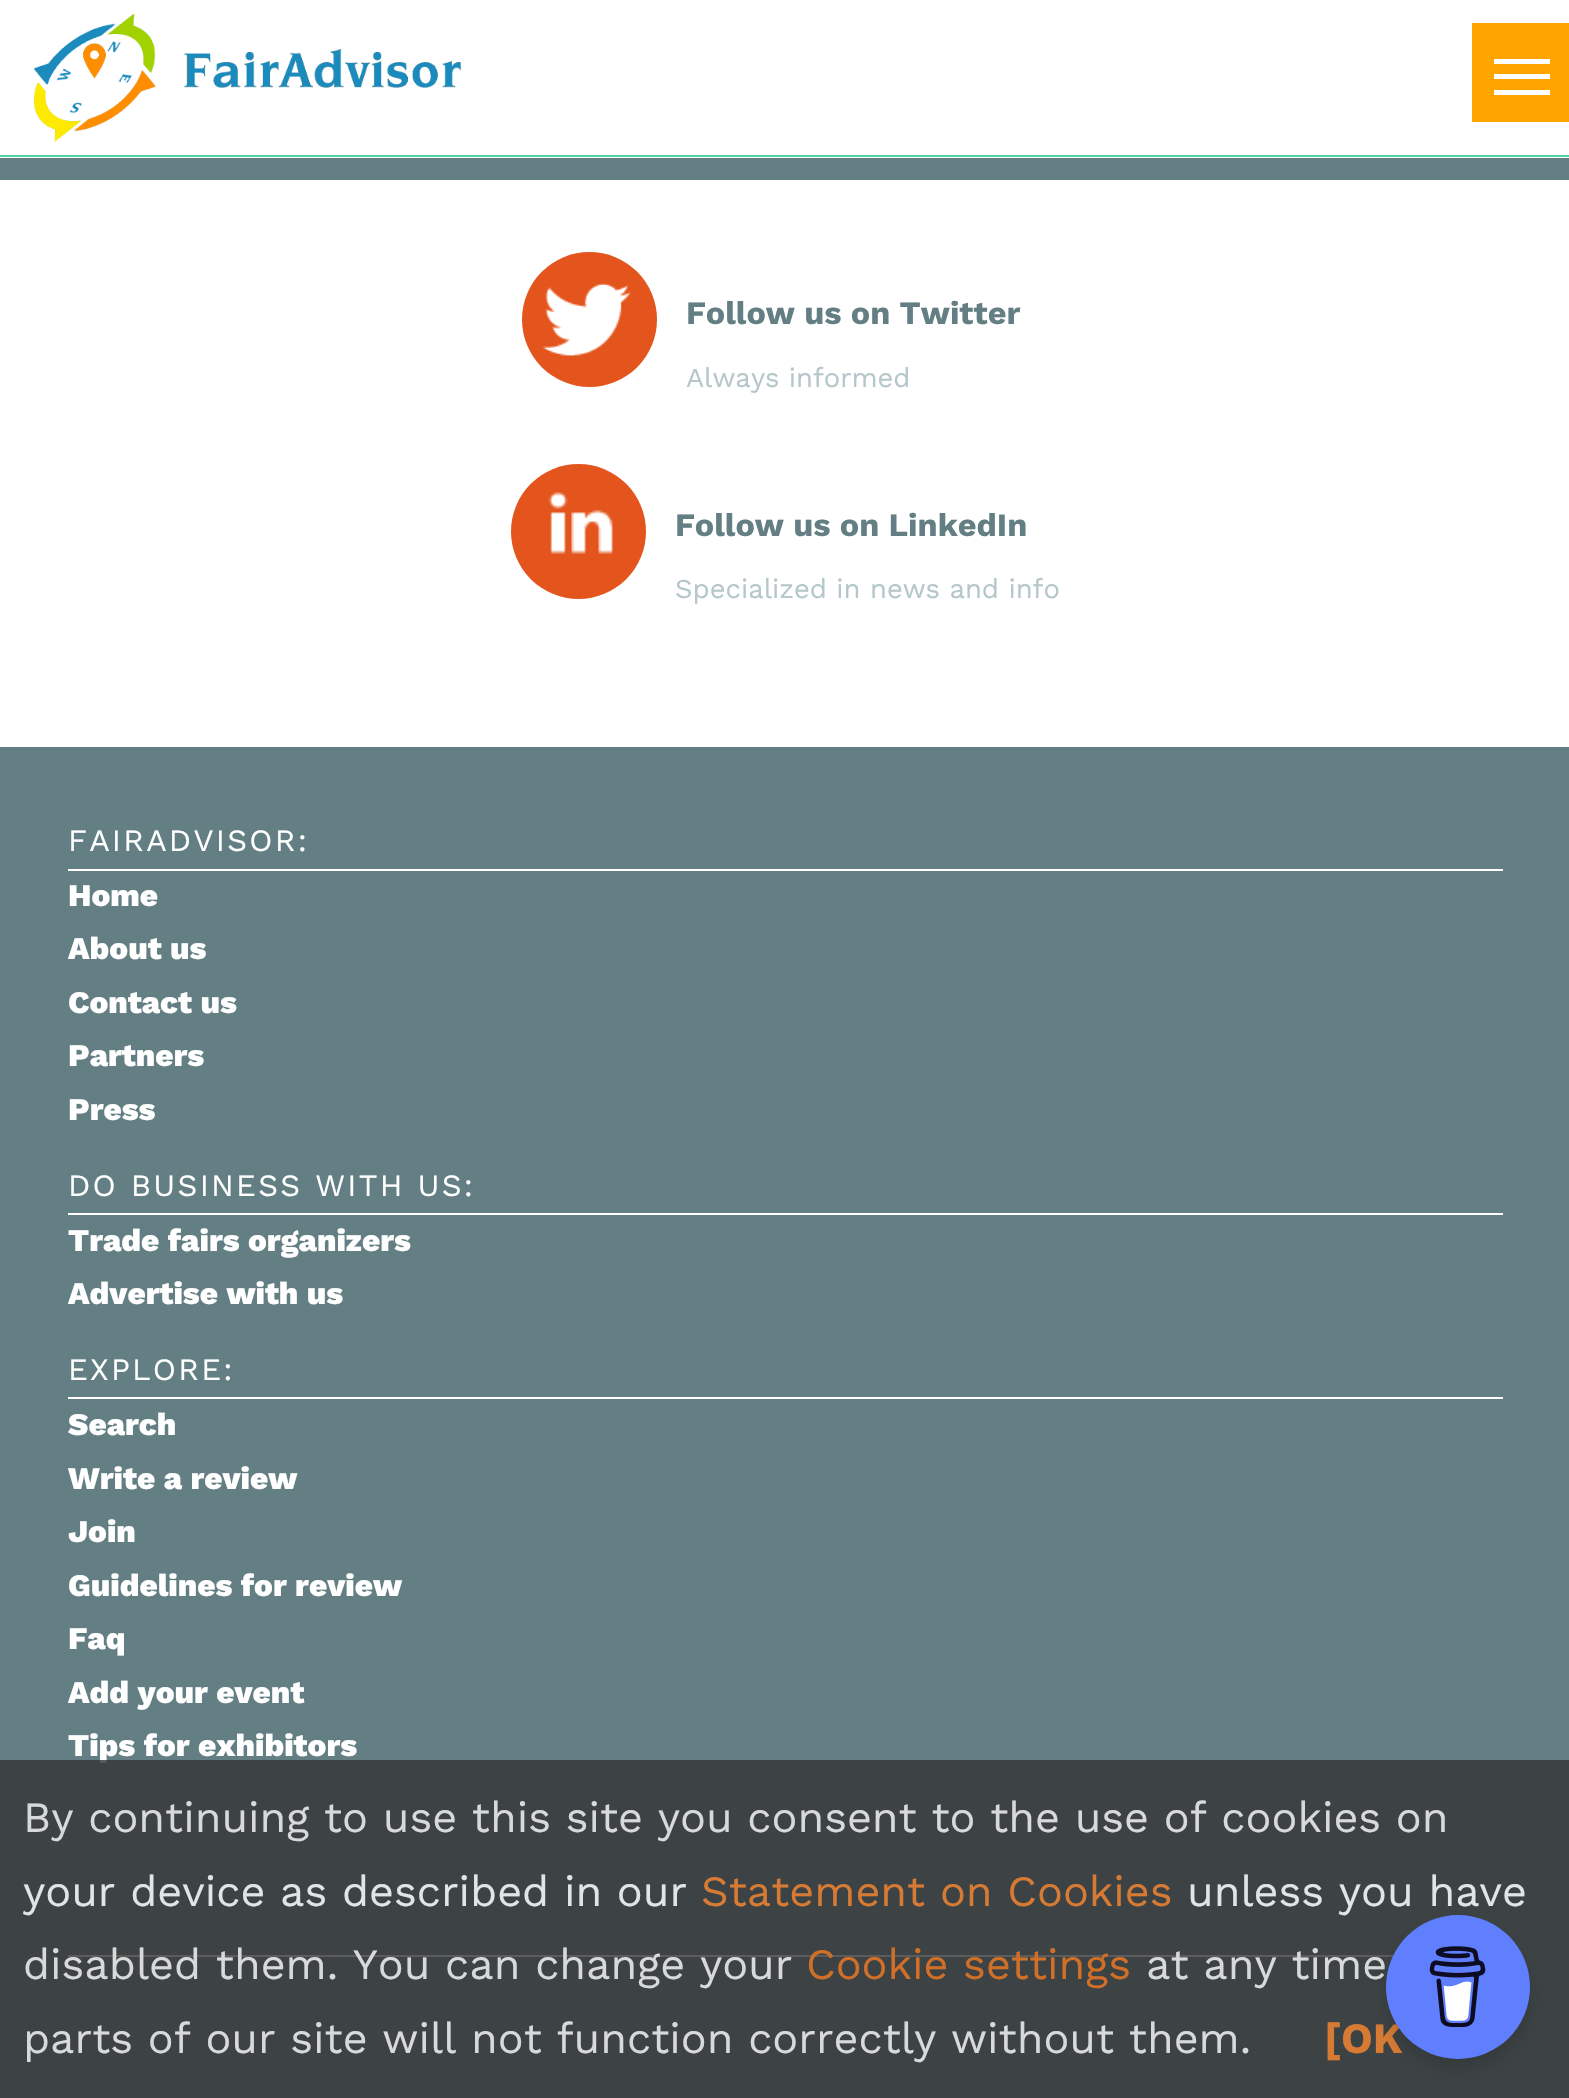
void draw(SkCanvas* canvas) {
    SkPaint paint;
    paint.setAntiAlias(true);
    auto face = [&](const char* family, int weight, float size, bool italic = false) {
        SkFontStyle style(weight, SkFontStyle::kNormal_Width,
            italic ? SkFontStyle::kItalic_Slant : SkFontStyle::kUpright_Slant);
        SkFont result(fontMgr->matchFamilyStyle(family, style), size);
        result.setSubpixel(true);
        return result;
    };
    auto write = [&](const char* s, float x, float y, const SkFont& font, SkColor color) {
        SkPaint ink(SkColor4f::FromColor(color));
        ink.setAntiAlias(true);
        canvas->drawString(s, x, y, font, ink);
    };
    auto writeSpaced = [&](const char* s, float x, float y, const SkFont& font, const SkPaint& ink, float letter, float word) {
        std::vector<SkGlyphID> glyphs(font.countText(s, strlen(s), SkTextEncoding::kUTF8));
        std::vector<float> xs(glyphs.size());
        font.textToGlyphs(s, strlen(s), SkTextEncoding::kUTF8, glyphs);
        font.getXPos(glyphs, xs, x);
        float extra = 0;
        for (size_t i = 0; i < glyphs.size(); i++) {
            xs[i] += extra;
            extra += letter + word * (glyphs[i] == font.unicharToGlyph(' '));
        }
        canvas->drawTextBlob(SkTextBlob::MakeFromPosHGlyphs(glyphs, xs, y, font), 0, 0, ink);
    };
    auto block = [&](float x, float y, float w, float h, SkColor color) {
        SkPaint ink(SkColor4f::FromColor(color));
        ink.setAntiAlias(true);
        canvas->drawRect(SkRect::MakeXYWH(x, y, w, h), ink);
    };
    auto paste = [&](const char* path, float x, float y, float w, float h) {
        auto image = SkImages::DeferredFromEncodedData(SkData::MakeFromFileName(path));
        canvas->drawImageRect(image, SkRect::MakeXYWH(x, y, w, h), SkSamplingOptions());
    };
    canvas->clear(SK_ColorWHITE);
    block(0, 155, 1569, 2, SkColorSetRGB(82, 211, 170));
    paste("pic1.png", 34, 14, 427, 128);
    block(1472, 23, 97, 99, SkColorSetRGB(255, 165, 0));
    block(1494, 74, 56, 5, SK_ColorWHITE);
    block(1494, 59, 56, 5, SK_ColorWHITE);
    block(1494, 90, 56, 5, SK_ColorWHITE);
    block(0, 158, 1569, 22, SkColorSetRGB(99, 127, 131));
    paint.setColor(SkColorSetRGB(228, 85, 29));
    canvas->drawCircle(589.5f, 319.5f, 67.5f, paint);
    paste("pic2.png", 542, 283, 89, 73);
    auto kFont1 = face("Work Sans", 700, 32.4f);
    write("Follow us on Twitter", 686, 324, kFont1, SkColorSetRGB(99, 127, 131));
    auto kFont2 = face("Work Sans", 400, 27.4f);
    write("Always informed", 686, 387, kFont2, SkColorSetRGB(181, 199, 201));
    canvas->drawCircle(578.5f, 531.5f, 67.5f, paint);
    paste("pic3.png", 548, 492, 65, 62);
    write("Follow us on LinkedIn", 675, 536, kFont1, SkColorSetRGB(99, 127, 131));
    write("Specialized in news and info", 675, 598, kFont2, SkColorSetRGB(181, 199, 201));
    block(0, 747, 1569, 1351, SkColorSetRGB(99, 127, 131));
    block(68, 869, 1435, 2, SK_ColorWHITE);
    auto kFont3 = face("Work Sans", 400, 31);
    paint.setColor(SK_ColorWHITE);
    writeSpaced("FAIRADVISOR:", 68, 851, kFont3, paint, 2.25f, 0);
    auto kFont4 = face("Work Sans", 800, 31.5f);
    write("Home", 68, 906, kFont4, SK_ColorWHITE);
    write("About us", 68, 959, kFont4, SK_ColorWHITE);
    write("Contact us", 68, 1013, kFont4, SK_ColorWHITE);
    write("Partners", 68, 1066, kFont4, SK_ColorWHITE);
    write("Press", 68, 1120, kFont4, SK_ColorWHITE);
    block(68, 1213, 1435, 2, SK_ColorWHITE);
    writeSpaced("DO BUSINESS WITH US:", 68, 1196, kFont3, paint, 2.25f, 0);
    write("Trade fairs organizers", 68, 1251, kFont4, SK_ColorWHITE);
    write("Advertise with us", 68, 1304, kFont4, SK_ColorWHITE);
    block(68, 1397, 1435, 2, SK_ColorWHITE);
    writeSpaced("EXPLORE:", 68, 1380, kFont3, paint, 2.25f, 0);
    write("Search", 68, 1435, kFont4, SK_ColorWHITE);
    write("Write a review", 68, 1489, kFont4, SK_ColorWHITE);
    write("Join", 68, 1542, kFont4, SK_ColorWHITE);
    write("Guidelines for review", 68, 1596, kFont4, SK_ColorWHITE);
    write("Faq", 68, 1649, kFont4, SK_ColorWHITE);
    write("Add your event", 68, 1703, kFont4, SK_ColorWHITE);
    write("Tips for exhibitors", 68, 1756, kFont4, SK_ColorWHITE);
    block(68, 1955, 1326, 2, SK_ColorWHITE);
    block(0, 1760, 1569, 338, SkColorSetARGB(204, 51, 51, 51));
    auto kFont5 = face("Work Sans", 400, 43.2f);
    write("By continuing to use this site you consent to the use of cookies on", 23, 1832, kFont5, SkColorSetRGB(216, 217, 217));
    write("your device as described in our", 23, 1906, kFont5, SkColorSetRGB(224, 229, 230));
    write("Statement on Cookies", 701, 1906, kFont5, SkColorSetRGB(215, 123, 52));
    write("unless you have", 1187, 1906, kFont5, SkColorSetRGB(224, 229, 230));
    write("disabled them. You can change your", 23, 1979, kFont5, SkColorSetRGB(216, 217, 217));
    write("Cookie settings", 806, 1979, kFont5, SkColorSetRGB(208, 111, 40));
    write("at any time", 1146, 1979, kFont5, SkColorSetRGB(216, 217, 217));
    write("parts of our site will not function correctly without them.", 23, 2053, kFont5, SkColorSetRGB(216, 217, 217));
    auto kFont6 = face("Work Sans", 700, 43.2f);
    write("[OK", 1324, 2053, kFont6, SkColorSetRGB(215, 123, 52));
    paint.setColor(SkColorSetARGB(38, 0, 0, 0));
    paint.setMaskFilter(SkMaskFilter::MakeBlur(kNormal_SkBlurStyle, 9));
    canvas->drawRoundRect(SkRect::MakeXYWH(1386, 1924, 144, 144), 72, 72, paint);
    paint.setMaskFilter(nullptr);
    paint.setColor(SkColorSetRGB(95, 127, 255));
    canvas->drawCircle(1458, 1987, 72, paint);
    paste("pic4.png", 1429, 1946, 57, 81);
}
